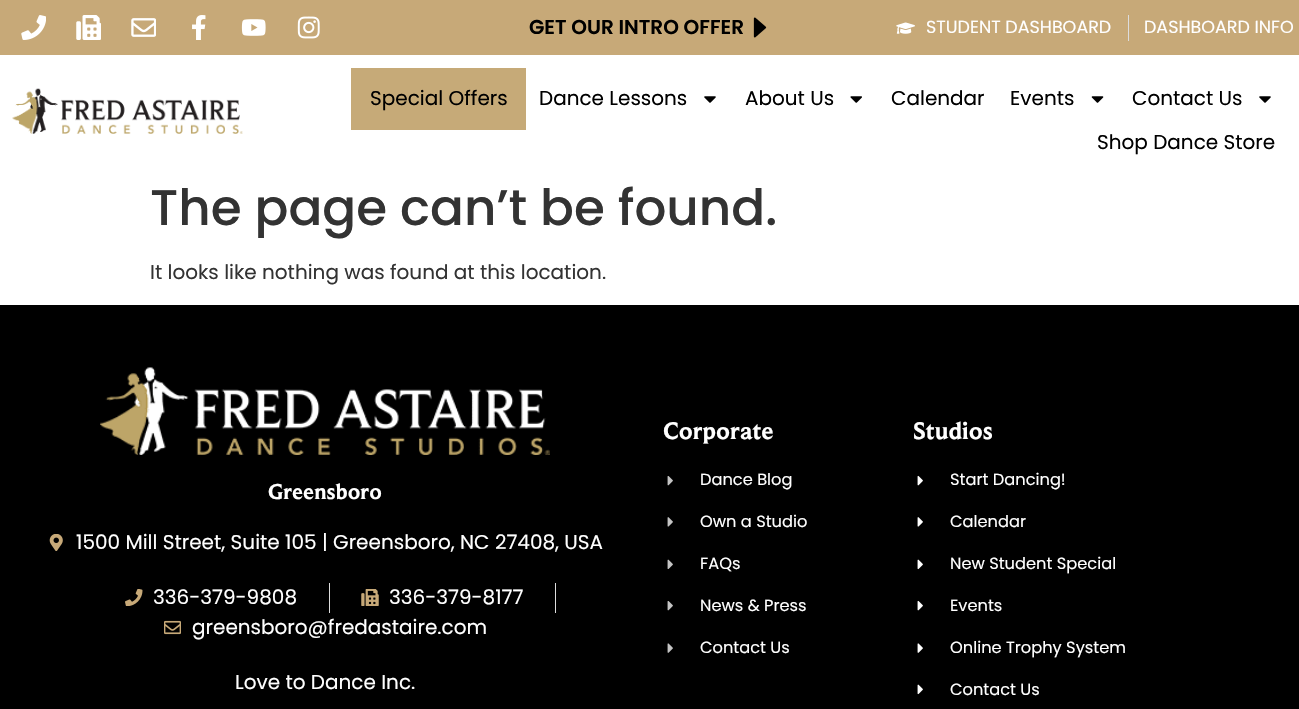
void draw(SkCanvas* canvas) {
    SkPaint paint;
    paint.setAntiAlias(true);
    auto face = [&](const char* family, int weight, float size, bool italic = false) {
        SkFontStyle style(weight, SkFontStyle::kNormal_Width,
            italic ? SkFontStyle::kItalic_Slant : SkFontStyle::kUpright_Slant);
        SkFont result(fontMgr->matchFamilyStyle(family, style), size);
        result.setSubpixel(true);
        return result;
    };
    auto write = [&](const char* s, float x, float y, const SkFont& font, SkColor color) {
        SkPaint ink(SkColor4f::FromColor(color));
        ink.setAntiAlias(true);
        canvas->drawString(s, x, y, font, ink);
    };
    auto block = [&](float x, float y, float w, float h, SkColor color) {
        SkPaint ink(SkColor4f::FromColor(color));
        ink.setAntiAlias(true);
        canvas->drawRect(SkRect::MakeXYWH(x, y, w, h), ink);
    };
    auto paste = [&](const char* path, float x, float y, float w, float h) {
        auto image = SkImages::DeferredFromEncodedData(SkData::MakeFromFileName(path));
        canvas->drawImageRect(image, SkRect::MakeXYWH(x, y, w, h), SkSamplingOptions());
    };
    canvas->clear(SK_ColorWHITE);
    block(0, 0, 1299, 55, SkColorSetRGB(199, 169, 120));
    paste("pic1.png", 21, 15, 25, 25);
    paste("pic2.png", 76, 15, 25, 25);
    paste("pic3.png", 131, 18, 25, 19);
    paste("pic4.png", 192, 15, 14, 25);
    paste("pic5.png", 241, 19, 25, 17);
    paste("pic6.png", 297, 16, 23, 23);
    auto kFont1 = face("Poppins", 600, 20);
    write("GET OUR INTRO OFFER", 529, 34, kFont1, SK_ColorBLACK);
    paste("pic7.png", 753, 17, 14, 21);
    paste("pic8.png", 896, 22, 19, 12);
    auto kFont2 = face("Poppins", 400, 17.5f);
    write("STUDENT DASHBOARD", 926, 33, kFont2, SK_ColorWHITE);
    block(1128, 15, 1, 26, SkColorSetRGB(221, 221, 221));
    write("DASHBOARD INFO", 1144, 33, kFont2, SK_ColorWHITE);
    paste("pic9.png", 12, 88, 231, 46);
    block(351, 68, 175, 62, SkColorSetRGB(198, 170, 120));
    auto kFont3 = face("Poppins", 400, 20);
    write("Special Offers", 370, 105, kFont3, SK_ColorBLACK);
    write("Dance Lessons", 539, 105, kFont3, SK_ColorBLACK);
    paste("pic10.png", 704, 96, 12, 7);
    write("About Us", 745, 105, kFont3, SK_ColorBLACK);
    paste("pic11.png", 850, 96, 12, 7);
    write("Calendar", 891, 105, kFont3, SK_ColorBLACK);
    write("Events", 1010, 105, kFont3, SK_ColorBLACK);
    paste("pic12.png", 1091, 96, 13, 7);
    write("Contact Us", 1132, 105, kFont3, SK_ColorBLACK);
    paste("pic10.png", 1259, 96, 12, 7);
    write("Shop Dance Store", 1097, 149, kFont3, SK_ColorBLACK);
    auto kFont4 = face("Poppins", 500, 50);
    write("The page can’t be found.", 150, 225, kFont4, SkColorSetRGB(51, 51, 51));
    write("It looks like nothing was found at this location.", 150, 279, kFont3, SkColorSetRGB(51, 51, 51));
    block(0, 305, 1299, 404, SK_ColorBLACK);
    paste("pic13.png", 100, 367, 450, 88);
    auto kFont5 = face("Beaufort", 700, 22.5f);
    write("Greensboro", 268, 499, kFont5, SK_ColorWHITE);
    paste("pic14.png", 49, 534, 14, 17);
    write("1500 Mill Street, Suite 105 | Greensboro, NC 27408, USA", 76, 549, kFont3, SK_ColorWHITE);
    paste("pic15.png", 125, 589, 18, 17);
    write("336-379-9808", 153, 604, kFont3, SK_ColorWHITE);
    block(329, 583, 1, 30, SkColorSetRGB(221, 221, 221));
    paste("pic16.png", 361, 589, 18, 17);
    write("336-379-8177", 389, 604, kFont3, SK_ColorWHITE);
    block(555, 583, 1, 30, SkColorSetRGB(221, 221, 221));
    paste("pic17.png", 164, 620, 17, 15);
    write("greensboro@fredastaire.com", 192, 634, kFont3, SK_ColorWHITE);
    write("Love to Dance Inc.", 235, 689, kFont3, SK_ColorWHITE);
    auto kFont6 = face("Beaufort", 700, 25);
    write("Corporate", 663, 439, kFont6, SK_ColorWHITE);
    paste("pic18.png", 667, 476, 6, 10);
    auto kFont7 = face("Poppins", 400, 16.25f);
    write("Dance Blog", 700, 485, kFont7, SK_ColorWHITE);
    paste("pic19.png", 667, 517, 6, 10);
    write("Own a Studio", 700, 527, kFont7, SK_ColorWHITE);
    paste("pic20.png", 667, 559, 6, 10);
    write("FAQs", 700, 569, kFont7, SK_ColorWHITE);
    paste("pic18.png", 667, 601, 6, 10);
    write("News & Press", 700, 611, kFont7, SK_ColorWHITE);
    paste("pic21.png", 667, 643, 6, 10);
    write("Contact Us", 700, 653, kFont7, SK_ColorWHITE);
    write("Studios", 913, 439, kFont6, SK_ColorWHITE);
    paste("pic22.png", 917, 475, 6, 11);
    write("Start Dancing!", 950, 485, kFont7, SK_ColorWHITE);
    paste("pic23.png", 917, 517, 6, 10);
    write("Calendar", 950, 527, kFont7, SK_ColorWHITE);
    paste("pic24.png", 917, 559, 6, 11);
    write("New Student Special", 950, 569, kFont7, SK_ColorWHITE);
    paste("pic22.png", 917, 600, 6, 11);
    write("Events", 950, 611, kFont7, SK_ColorWHITE);
    paste("pic25.png", 917, 643, 6, 10);
    write("Online Trophy System", 950, 653, kFont7, SK_ColorWHITE);
    paste("pic24.png", 917, 684, 6, 11);
    write("Contact Us", 950, 695, kFont7, SK_ColorWHITE);
}
